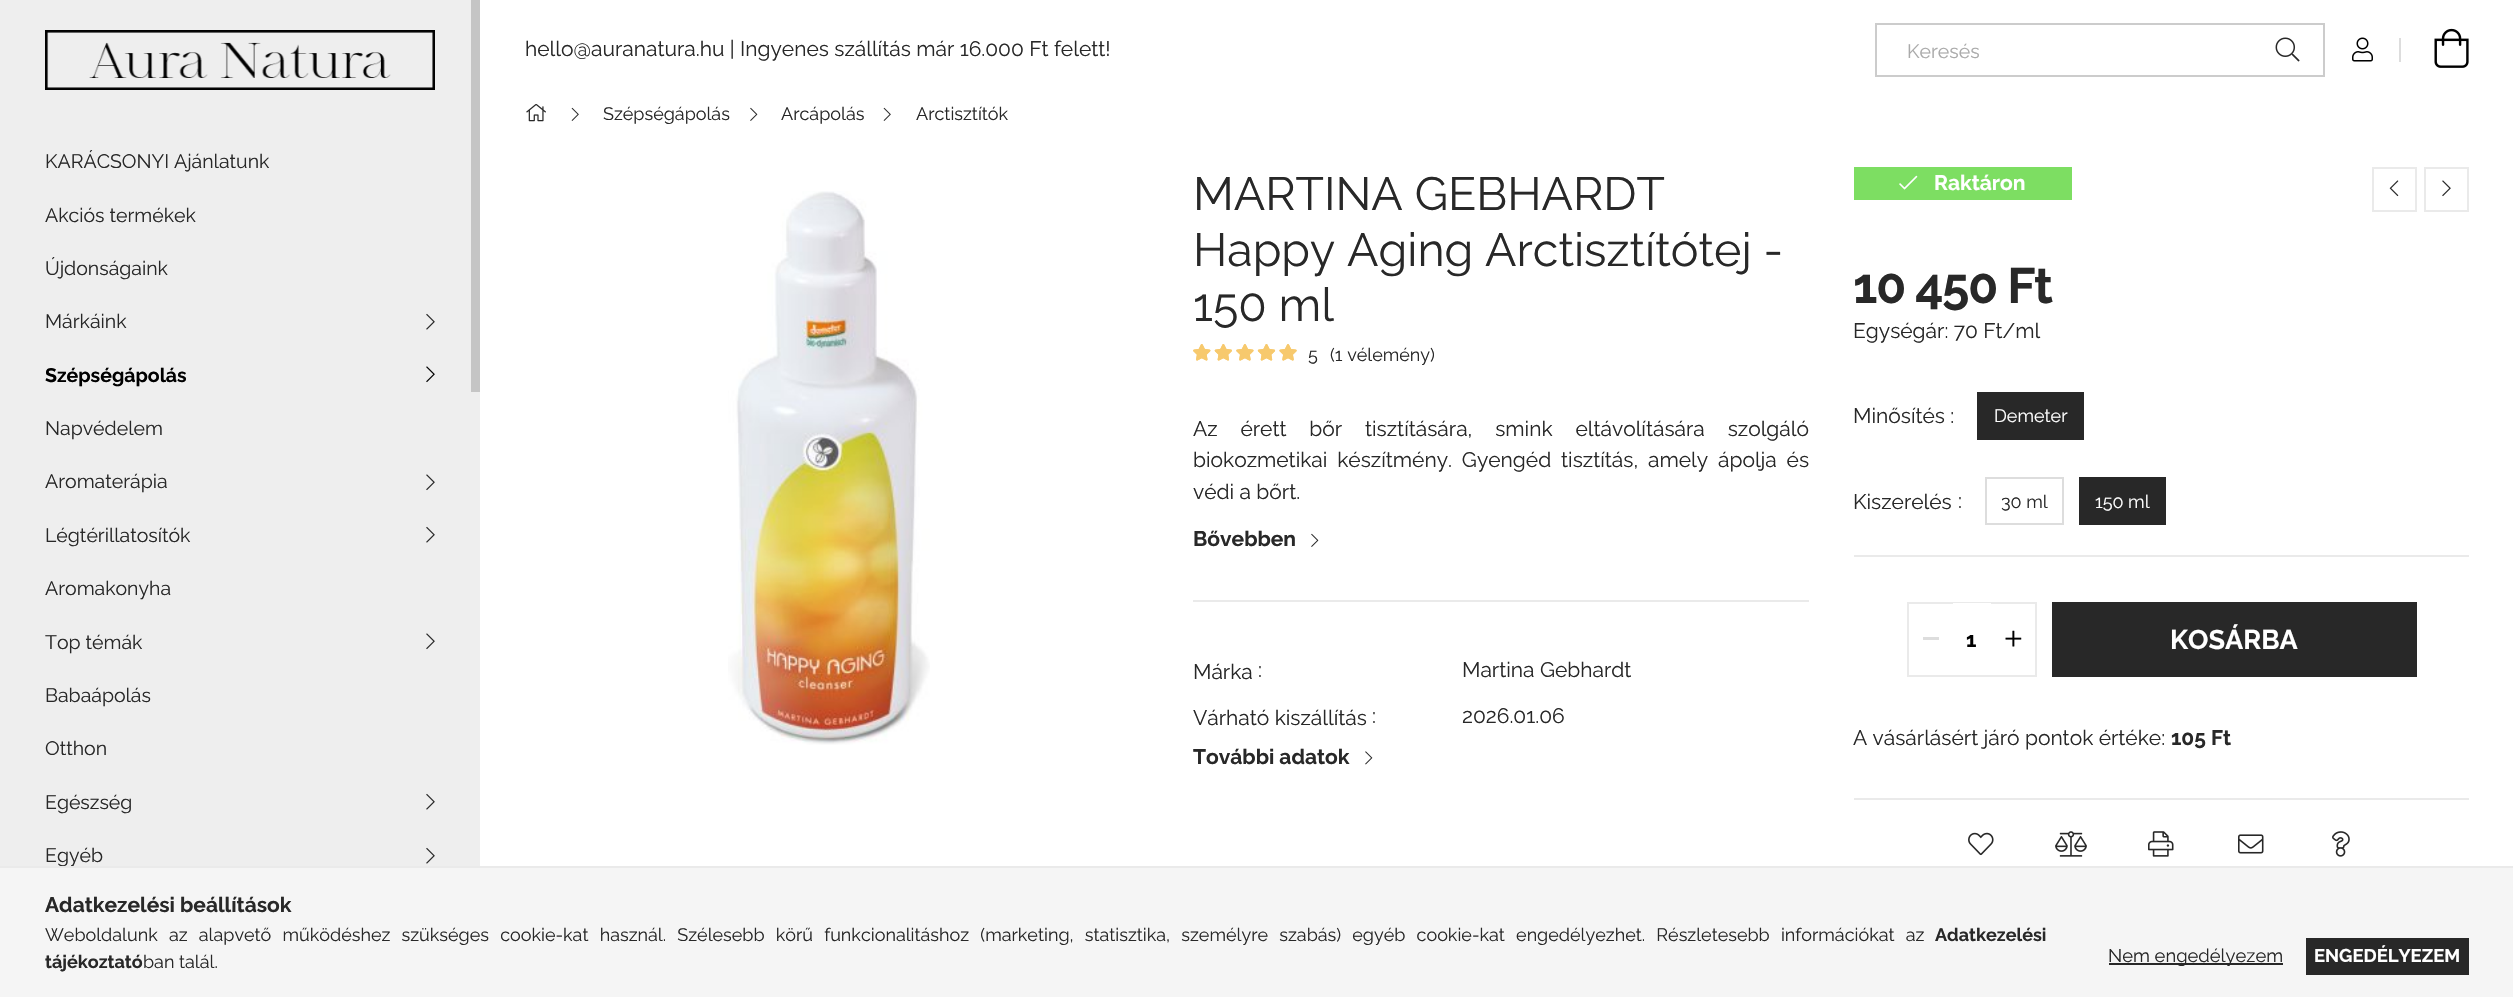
void draw(SkCanvas* canvas) {
    SkPaint paint;
    paint.setAntiAlias(true);
    auto face = [&](const char* family, int weight, float size, bool italic = false) {
        SkFontStyle style(weight, SkFontStyle::kNormal_Width,
            italic ? SkFontStyle::kItalic_Slant : SkFontStyle::kUpright_Slant);
        SkFont result(fontMgr->matchFamilyStyle(family, style), size);
        result.setSubpixel(true);
        return result;
    };
    auto write = [&](const char* s, float x, float y, const SkFont& font, SkColor color) {
        SkPaint ink(SkColor4f::FromColor(color));
        ink.setAntiAlias(true);
        canvas->drawString(s, x, y, font, ink);
    };
    auto writeSpaced = [&](const char* s, float x, float y, const SkFont& font, const SkPaint& ink, float letter, float word) {
        std::vector<SkGlyphID> glyphs(font.countText(s, strlen(s), SkTextEncoding::kUTF8));
        std::vector<float> xs(glyphs.size());
        font.textToGlyphs(s, strlen(s), SkTextEncoding::kUTF8, glyphs);
        font.getXPos(glyphs, xs, x);
        float extra = 0;
        for (size_t i = 0; i < glyphs.size(); i++) {
            xs[i] += extra;
            extra += letter + word * (glyphs[i] == font.unicharToGlyph(' '));
        }
        canvas->drawTextBlob(SkTextBlob::MakeFromPosHGlyphs(glyphs, xs, y, font), 0, 0, ink);
    };
    auto block = [&](float x, float y, float w, float h, SkColor color) {
        SkPaint ink(SkColor4f::FromColor(color));
        ink.setAntiAlias(true);
        canvas->drawRect(SkRect::MakeXYWH(x, y, w, h), ink);
    };
    auto paste = [&](const char* path, float x, float y, float w, float h) {
        auto image = SkImages::DeferredFromEncodedData(SkData::MakeFromFileName(path));
        canvas->drawImageRect(image, SkRect::MakeXYWH(x, y, w, h), SkSamplingOptions());
    };
    canvas->clear(SK_ColorWHITE);
    block(0, 0, 480, 866, SkColorSetRGB(238, 238, 238));
    paste("pic1.png", 45, 30, 390, 60);
    auto kFont1 = face("Raleway", 400, 19.5f);
    write("KARÁCSONYI Ajánlatunk", 45, 168, kFont1, SkColorSetRGB(40, 40, 40));
    write("Akciós termékek", 45, 222, kFont1, SkColorSetRGB(40, 40, 40));
    write("Újdonságaink", 45, 275, kFont1, SkColorSetRGB(40, 40, 40));
    write("Márkáink", 45, 328, kFont1, SkColorSetRGB(40, 40, 40));
    paste("pic2.png", 426, 313, 9, 17);
    auto kFont2 = face("Raleway", 700, 19.5f);
    write("Szépségápolás", 45, 382, kFont2, SK_ColorBLACK);
    paste("pic3.png", 426, 366, 9, 17);
    write("Napvédelem", 45, 435, kFont1, SkColorSetRGB(40, 40, 40));
    write("Aromaterápia", 45, 488, kFont1, SkColorSetRGB(40, 40, 40));
    paste("pic4.png", 426, 474, 9, 17);
    write("Légtérillatosítók", 45, 542, kFont1, SkColorSetRGB(40, 40, 40));
    paste("pic2.png", 426, 526, 9, 17);
    write("Aromakonyha", 45, 595, kFont1, SkColorSetRGB(40, 40, 40));
    write("Top témák", 45, 649, kFont1, SkColorSetRGB(40, 40, 40));
    paste("pic4.png", 426, 633, 9, 17);
    write("Babaápolás", 45, 702, kFont1, SkColorSetRGB(40, 40, 40));
    write("Otthon", 45, 755, kFont1, SkColorSetRGB(40, 40, 40));
    write("Egészség", 45, 809, kFont1, SkColorSetRGB(40, 40, 40));
    paste("pic2.png", 426, 793, 9, 17);
    write("Egyéb", 45, 862, kFont1, SkColorSetRGB(40, 40, 40));
    paste("pic2.png", 426, 847, 9, 17);
    block(471, 0, 9, 392, SkColorSetRGB(197, 197, 197));
    auto kFont3 = face("Raleway", 400, 21);
    write("hello@auranatura.hu | Ingyenes szállítás már 16.000 Ft felett!", 525, 56, kFont3, SkColorSetRGB(40, 40, 40));
    paint.setStyle(SkPaint::kStroke_Style);
    paint.setStrokeWidth(2);
    paint.setColor(SkColorSetRGB(204, 204, 204));
    canvas->drawRect(SkRect::MakeXYWH(1876, 24, 448, 52), paint);
    write("Keresés", 1907, 58, kFont1, SkColorSetRGB(170, 170, 170));
    paste("pic5.png", 2275, 37, 25, 25);
    paste("pic6.png", 2352, 37, 21, 25);
    block(2399, 38, 2, 24, SkColorSetRGB(221, 221, 221));
    paste("pic7.png", 2434, 28, 35, 40);
    paste("pic8.png", 526, 104, 20, 18);
    paste("pic9.png", 571, 107, 8, 14);
    auto kFont4 = face("Raleway", 400, 18);
    write("Szépségápolás", 603, 120, kFont4, SkColorSetRGB(40, 40, 40));
    paste("pic10.png", 750, 107, 8, 14);
    write("Arcápolás", 781, 120, kFont4, SkColorSetRGB(40, 40, 40));
    paste("pic9.png", 883, 107, 8, 14);
    write("Arctisztítók", 916, 120, kFont4, SkColorSetRGB(40, 40, 40));
    paste("pic11.png", 728, 191, 202, 554);
    auto kFont5 = face("Raleway", 400, 46.5f);
    write("MARTINA GEBHARDT", 1193, 210, kFont5, SkColorSetRGB(40, 40, 40));
    write("Happy Aging Arctisztítótej -", 1193, 266, kFont5, SkColorSetRGB(40, 40, 40));
    write("150 ml", 1193, 321, kFont5, SkColorSetRGB(40, 40, 40));
    paste("pic12.png", 1193, 344, 104, 17);
    paste("pic13.png", 1193, 344, 104, 17);
    write("5", 1308, 361, kFont4, SkColorSetRGB(40, 40, 40));
    write("(1 vélemény)", 1330, 361, kFont4, SkColorSetRGB(40, 40, 40));
    paint.setStyle(SkPaint::kFill_Style);
    paint.setColor(SkColorSetRGB(40, 40, 40));
    writeSpaced("Az érett bőr tisztítására, smink eltávolítására szolgáló", 1193, 436, kFont3, paint, 0, 17.5f);
    writeSpaced("biokozmetikai készítmény. Gyengéd tisztítás, amely ápolja és", 1193, 467, kFont3, paint, 0, 4.5f);
    write("védi a bőrt.", 1193, 499, kFont3, SkColorSetRGB(40, 40, 40));
    auto kFont6 = face("Raleway", 700, 21);
    write("Bővebben", 1193, 546, kFont6, SkColorSetRGB(40, 40, 40));
    paste("pic10.png", 1311, 533, 8, 14);
    block(1193, 600, 616, 2, SkColorSetRGB(234, 234, 234));
    write("Márka", 1193, 679, kFont3, SkColorSetRGB(40, 40, 40));
    write(":", 1258, 677, kFont3, SkColorSetRGB(40, 40, 40));
    write("Martina Gebhardt", 1462, 677, kFont3, SkColorSetRGB(40, 40, 40));
    write("Várható kiszállítás", 1193, 725, kFont3, SkColorSetRGB(40, 40, 40));
    write(":", 1372, 723, kFont3, SkColorSetRGB(40, 40, 40));
    write("2026.01.06", 1462, 723, kFont3, SkColorSetRGB(40, 40, 40));
    write("További adatok", 1193, 764, kFont6, SkColorSetRGB(40, 40, 40));
    paste("pic14.png", 1365, 751, 8, 14);
    block(1854, 167, 218, 33, SkColorSetRGB(125, 222, 98));
    paste("pic15.png", 1899, 175, 19, 15);
    write("Raktáron", 1934, 190, kFont6, SK_ColorWHITE);
    paint.setStyle(SkPaint::kStroke_Style);
    paint.setColor(SkColorSetRGB(234, 234, 234));
    canvas->drawRect(SkRect::MakeXYWH(2373, 168, 43, 43), paint);
    paste("pic16.png", 2389, 180, 10, 17);
    canvas->drawRect(SkRect::MakeXYWH(2425, 168, 43, 43), paint);
    paste("pic17.png", 2442, 180, 9, 17);
    auto kFont7 = face("Raleway", 700, 49.5f);
    paint.setStyle(SkPaint::kFill_Style);
    paint.setColor(SkColorSetRGB(40, 40, 40));
    writeSpaced("10 450 Ft", 1853, 303, kFont7, paint, -1.5f, 0);
    write("Egységár: 70 Ft/ml", 1853, 338, kFont3, SkColorSetRGB(40, 40, 40));
    block(1854, 555, 615, 2, SkColorSetRGB(234, 234, 234));
    write("Minősítés :", 1853, 423, kFont3, SkColorSetRGB(40, 40, 40));
    block(1977, 392, 107, 48, SkColorSetRGB(40, 40, 40));
    write("Demeter", 1994, 422, kFont4, SK_ColorWHITE);
    write("Kiszerelés", 1853, 509, kFont3, SkColorSetRGB(40, 40, 40));
    write(":", 1958, 508, kFont3, SkColorSetRGB(40, 40, 40));
    paint.setStyle(SkPaint::kStroke_Style);
    paint.setColor(SkColorSetRGB(221, 221, 221));
    canvas->drawRect(SkRect::MakeXYWH(1986, 478, 77, 46), paint);
    write("30 ml", 2001, 508, kFont4, SkColorSetRGB(40, 40, 40));
    block(2079, 477, 87, 48, SkColorSetRGB(40, 40, 40));
    write("150 ml", 2095, 508, kFont4, SK_ColorWHITE);
    paint.setColor(SkColorSetRGB(234, 234, 234));
    canvas->drawRect(SkRect::MakeXYWH(1908, 603, 128, 73), paint);
    block(1923, 637, 16, 3, SkColorSetRGB(221, 221, 221));
    block(1953, 603, 38, 1, SK_ColorWHITE);
    write("1", 1966, 647, kFont6, SK_ColorBLACK);
    paste("pic18.png", 2005, 630, 17, 17);
    block(2052, 602, 365, 75, SkColorSetRGB(40, 40, 40));
    auto kFont8 = face("Raleway", 700, 27);
    write("KOSÁRBA", 2170, 649, kFont8, SK_ColorWHITE);
    write("A vásárlásért járó pontok értéke:", 1853, 745, kFont3, SkColorSetRGB(40, 40, 40));
    write("105 Ft", 2171, 745, kFont6, SkColorSetRGB(40, 40, 40));
    block(1854, 798, 615, 2, SkColorSetRGB(234, 234, 234));
    paste("pic19.png", 1968, 832, 26, 24);
    paste("pic20.png", 2055, 831, 32, 26);
    paste("pic21.png", 2148, 831, 26, 26);
    paste("pic22.png", 2238, 834, 26, 20);
    paste("pic23.png", 2332, 831, 18, 26);
    block(0, 868, 2513, 129, SkColorSetRGB(245, 245, 245));
    block(0, 866, 2513, 2, SkColorSetRGB(234, 234, 234));
    write("Adatkezelési beállítások", 45, 912, kFont6, SkColorSetRGB(40, 40, 40));
    paint.setStyle(SkPaint::kFill_Style);
    paint.setColor(SkColorSetRGB(40, 40, 40));
    writeSpaced("Weboldalunk az alapvető működéshez szükséges cookie-kat használ. Szélesebb körű funkcionalitáshoz (marketing, statisztika, személyre szabás) egyéb cookie-kat engedélyezhet. Részletesebb információkat az", 45, 941, kFont4, paint, 0, 6.6f);
    auto kFont9 = face("Raleway", 700, 18);
    write("Adatkezelési", 1935, 941, kFont9, SkColorSetRGB(40, 40, 40));
    write("tájékoztató", 45, 968, kFont9, SkColorSetRGB(40, 40, 40));
    write("ban talál.", 143, 968, kFont4, SkColorSetRGB(40, 40, 40));
    block(2109, 963, 174, 2, SkColorSetRGB(40, 40, 40));
    auto kFont10 = face("Raleway", 400, 18.4f);
    write("Nem engedélyezem", 2108, 962, kFont10, SkColorSetRGB(40, 40, 40));
    block(2306, 938, 163, 37, SkColorSetRGB(40, 40, 40));
    auto kFont11 = face("Raleway", 700, 18.4f);
    write("ENGEDÉLYEZEM", 2314, 962, kFont11, SK_ColorWHITE);
}
